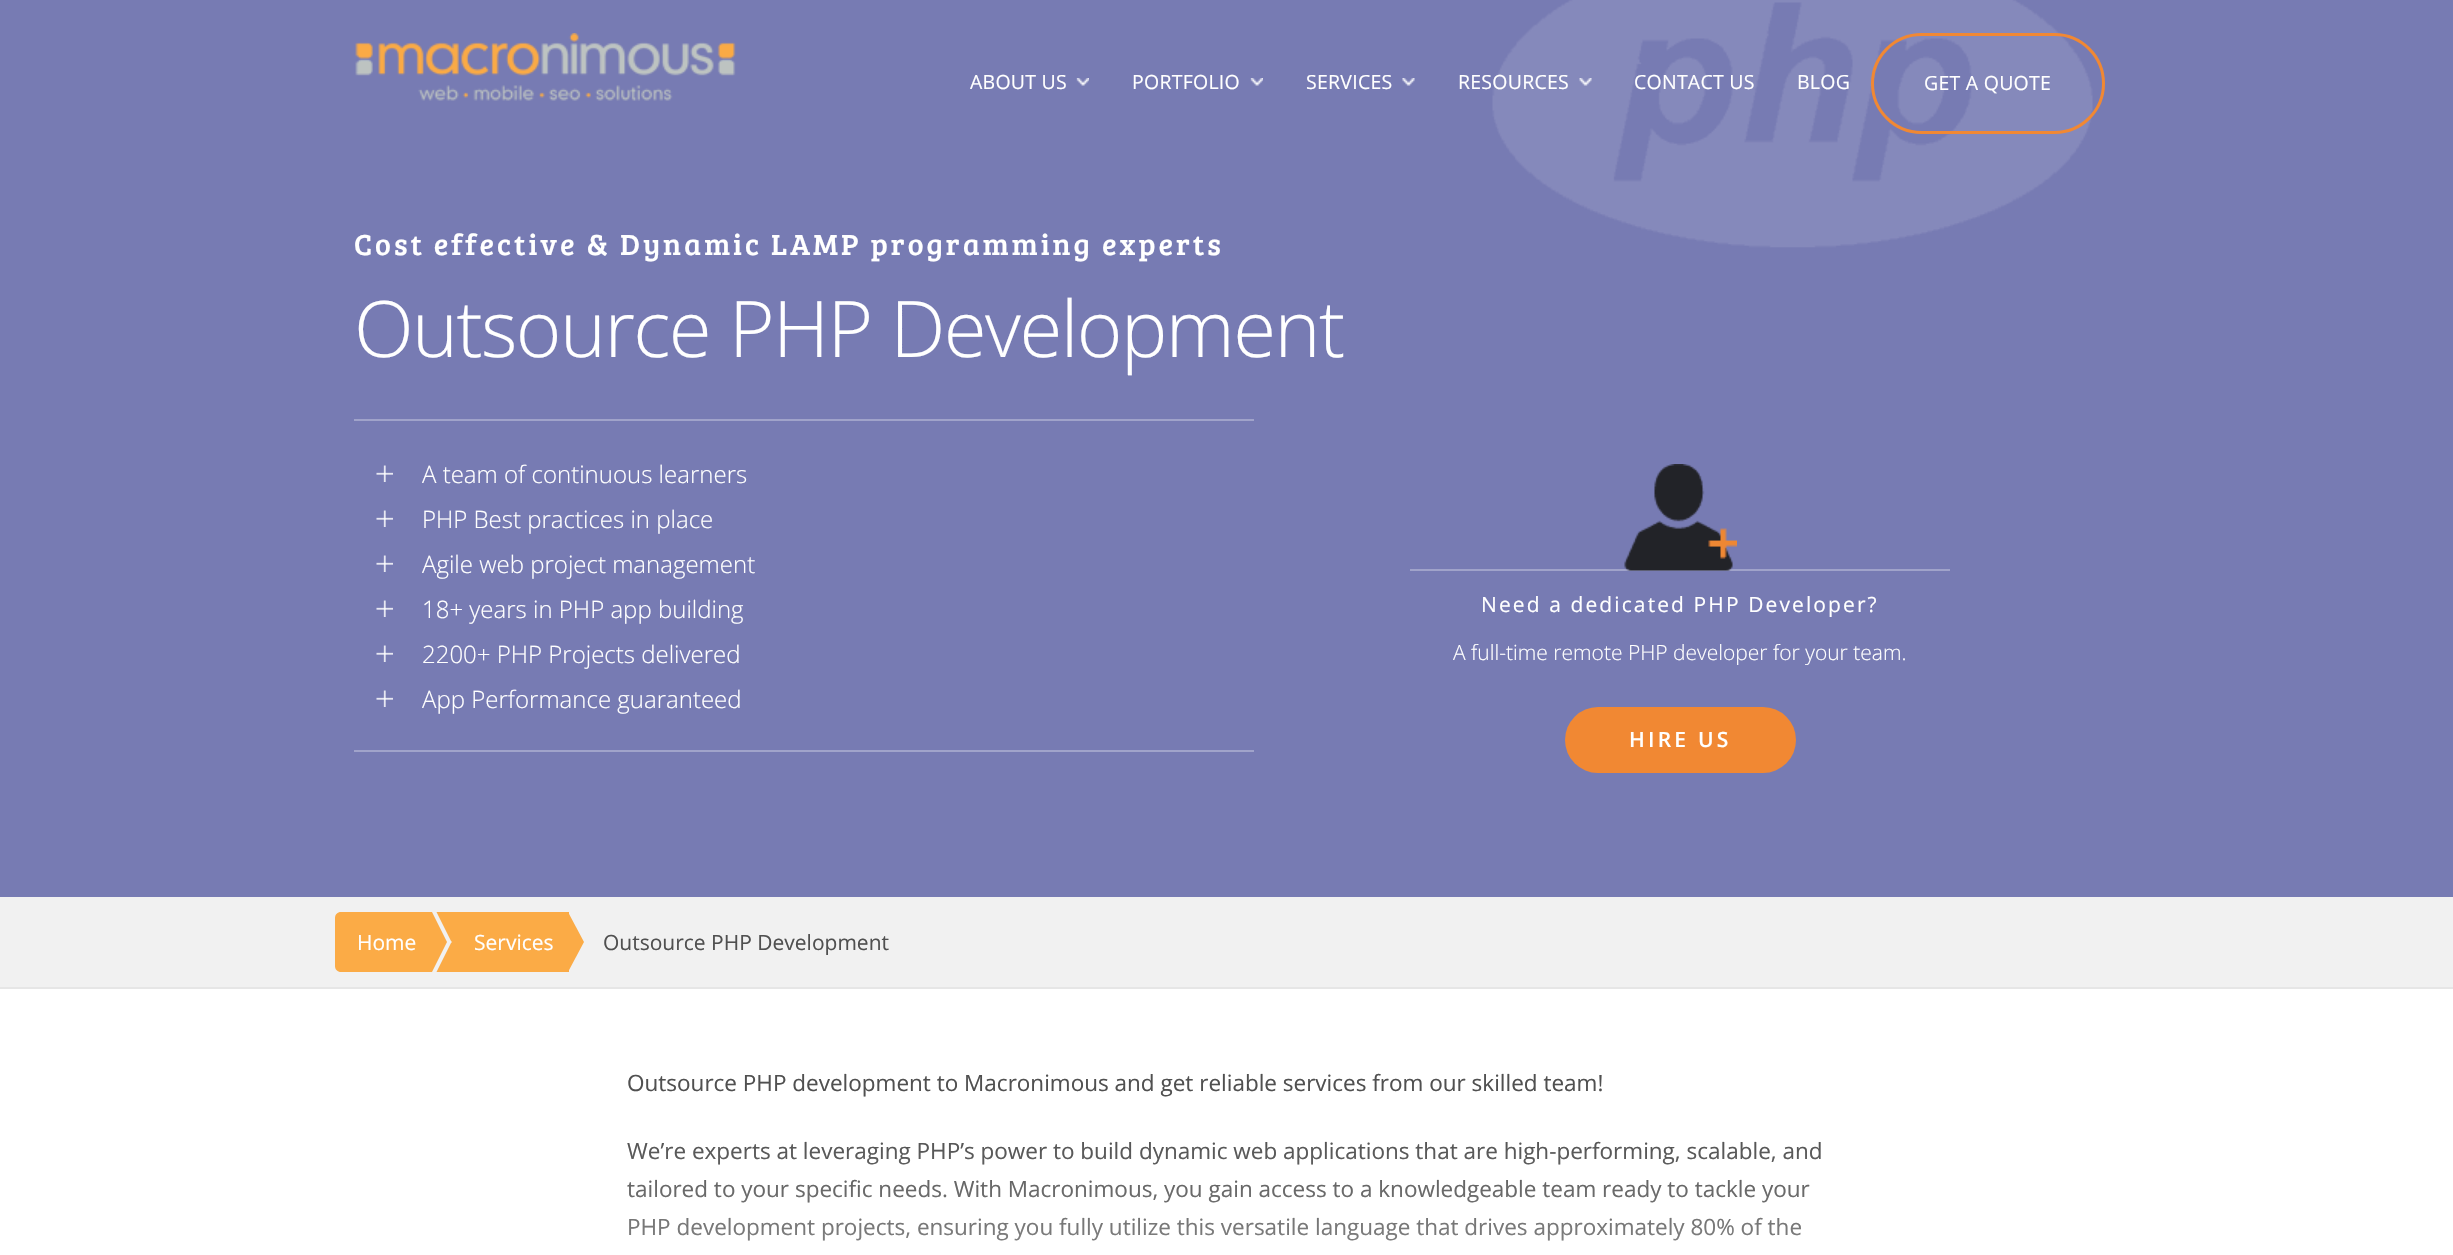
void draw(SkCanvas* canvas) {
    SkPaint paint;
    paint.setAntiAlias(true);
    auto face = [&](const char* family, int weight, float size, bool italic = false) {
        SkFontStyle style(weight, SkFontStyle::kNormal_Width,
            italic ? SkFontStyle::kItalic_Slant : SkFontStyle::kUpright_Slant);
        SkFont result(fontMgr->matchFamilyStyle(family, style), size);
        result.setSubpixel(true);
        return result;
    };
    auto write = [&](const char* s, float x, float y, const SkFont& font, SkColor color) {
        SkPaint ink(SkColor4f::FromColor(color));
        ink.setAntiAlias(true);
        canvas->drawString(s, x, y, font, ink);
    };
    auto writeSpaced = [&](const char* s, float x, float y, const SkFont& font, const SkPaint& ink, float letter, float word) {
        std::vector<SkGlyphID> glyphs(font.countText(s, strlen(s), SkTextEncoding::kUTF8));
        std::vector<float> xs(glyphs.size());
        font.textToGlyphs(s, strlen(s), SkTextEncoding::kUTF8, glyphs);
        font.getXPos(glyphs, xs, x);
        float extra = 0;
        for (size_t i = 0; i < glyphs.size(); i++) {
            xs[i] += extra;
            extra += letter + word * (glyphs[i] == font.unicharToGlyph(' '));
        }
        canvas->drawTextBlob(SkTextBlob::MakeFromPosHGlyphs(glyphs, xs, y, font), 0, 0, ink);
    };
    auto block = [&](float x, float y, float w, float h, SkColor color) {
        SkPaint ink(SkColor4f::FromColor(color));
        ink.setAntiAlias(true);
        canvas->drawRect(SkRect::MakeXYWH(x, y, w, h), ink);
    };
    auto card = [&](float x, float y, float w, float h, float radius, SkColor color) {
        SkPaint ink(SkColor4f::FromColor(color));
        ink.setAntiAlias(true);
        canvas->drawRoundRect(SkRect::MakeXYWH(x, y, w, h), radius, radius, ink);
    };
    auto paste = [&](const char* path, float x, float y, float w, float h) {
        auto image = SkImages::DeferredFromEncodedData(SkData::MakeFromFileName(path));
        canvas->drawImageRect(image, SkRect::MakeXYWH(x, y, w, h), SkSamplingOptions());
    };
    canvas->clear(SK_ColorWHITE);
    block(0, 0, 2453, 897, SkColorSetRGB(119, 123, 179));
    paste("pic1.png", 355, 33, 381, 68);
    paste("pic2.png", 1076, 78, 13, 8);
    auto kFont1 = face("Open Sans", 400, 19.5f);
    paint.setColor(SK_ColorWHITE);
    writeSpaced("ABOUT US", 970, 89, kFont1, paint, 0.25f, 0);
    paste("pic2.png", 1250, 78, 13, 8);
    writeSpaced("PORTFOLIO", 1132, 89, kFont1, paint, 0.25f, 0);
    paste("pic3.png", 1402, 78, 13, 8);
    writeSpaced("SERVICES", 1306, 89, kFont1, paint, 0.25f, 0);
    paste("pic5.png", 1492, 0, 601, 248);
    paste("pic4.png", 1579, 78, 13, 8);
    writeSpaced("RESOURCES", 1458, 89, kFont1, paint, 0.25f, 0);
    writeSpaced("CONTACT US", 1634, 89, kFont1, paint, 0.25f, 0);
    writeSpaced("BLOG", 1797, 89, kFont1, paint, 0.25f, 0);
    paint.setStyle(SkPaint::kStroke_Style);
    paint.setStrokeWidth(3);
    paint.setColor(SkColorSetRGB(241, 136, 51));
    canvas->drawRoundRect(SkRect::MakeXYWH(1872.5f, 34.5f, 231, 98), 49, 49, paint);
    paint.setStyle(SkPaint::kFill_Style);
    paint.setColor(SK_ColorWHITE);
    writeSpaced("GET A QUOTE", 1924, 90, kFont1, paint, 0.25f, 0);
    auto kFont2 = face("Bree Serif", 400, 30);
    writeSpaced("Cost effective & Dynamic LAMP programming experts", 354, 255, kFont2, paint, 3, 0);
    auto kFont3 = face("Open Sans", 300, 78);
    writeSpaced("Outsource PHP Development", 354, 357, kFont3, paint, -1.55f, 0);
    block(354, 419, 900, 2, SkColorSetRGB(160, 163, 202));
    block(354, 750, 900, 2, SkColorSetRGB(160, 163, 202));
    paste("pic6.png", 376, 465, 17, 17);
    auto kFont4 = face("Open Sans", 300, 24);
    write("A team of continuous learners", 422, 483, kFont4, SK_ColorWHITE);
    paste("pic6.png", 376, 510, 17, 17);
    write("PHP Best practices in place", 422, 528, kFont4, SK_ColorWHITE);
    paste("pic6.png", 376, 555, 17, 17);
    write("Agile web project management", 422, 573, kFont4, SK_ColorWHITE);
    paste("pic6.png", 376, 600, 17, 17);
    write("18+ years in PHP app building", 422, 618, kFont4, SK_ColorWHITE);
    paste("pic6.png", 376, 645, 17, 17);
    write("2200+ PHP Projects delivered", 422, 663, kFont4, SK_ColorWHITE);
    paste("pic6.png", 376, 690, 17, 17);
    write("App Performance guaranteed", 422, 708, kFont4, SK_ColorWHITE);
    block(1410, 569, 540, 2, SkColorSetRGB(160, 163, 202));
    paste("pic7.png", 1624, 464, 113, 107);
    auto kFont5 = face("Open Sans", 400, 21);
    writeSpaced("Need a dedicated PHP Developer?", 1481, 612, kFont5, paint, 2.1f, 0);
    auto kFont6 = face("Open Sans", 300, 21);
    write("A full-time remote PHP developer for your team.", 1453, 660, kFont6, SK_ColorWHITE);
    card(1565, 707, 231, 66, 33, SkColorSetRGB(241, 136, 51));
    auto kFont7 = face("Open Sans", 600, 21);
    writeSpaced("HIRE US", 1629, 747, kFont7, paint, 3.25f, 0);
    block(0, 897, 2453, 90, SkColorSetRGB(241, 241, 241));
    paint.setColor(SkColorSetRGB(251, 171, 70));
    canvas->drawPath(SkPathBuilder().moveTo(341, 912).lineTo(432, 912).lineTo(432, 972).lineTo(341, 972).cubicTo(337.5f, 972, 335, 969.5f, 335, 966).lineTo(335, 918).cubicTo(335, 914.5f, 337.5f, 912, 341, 912).close().detach(), paint);
    write("Home", 357, 950, kFont5, SK_ColorWHITE);
    canvas->drawPath(SkPathBuilder().moveTo(432, 972).lineTo(432, 912).lineTo(447, 942).close().detach(), paint);
    block(467, 912, 102, 60, SkColorSetRGB(251, 171, 70));
    canvas->drawPath(SkPathBuilder().moveTo(436.5f, 912).lineTo(466.5f, 912).lineTo(451.5f, 942).close().detach(), paint);
    block(452, 912, 15, 60, SkColorSetRGB(251, 171, 70));
    canvas->drawPath(SkPathBuilder().moveTo(466.5f, 972).lineTo(436.5f, 972).lineTo(451.5f, 942).close().detach(), paint);
    write("Services", 474, 950, kFont5, SK_ColorWHITE);
    canvas->drawPath(SkPathBuilder().moveTo(568, 972).lineTo(568, 912).lineTo(584, 942).close().detach(), paint);
    write("Outsource PHP Development", 603, 950, kFont5, SkColorSetRGB(80, 80, 80));
    block(0, 987, 2453, 2, SkColorSetRGB(230, 230, 230));
    auto kFont8 = face("Open Sans", 400, 22.5f);
    write("Outsource PHP development to Macronimous and get reliable services from our skilled team!", 627, 1091, kFont8, SkColorSetRGB(80, 80, 80));
    write("We’re experts at leveraging PHP’s power to build dynamic web applications that are high-performing, scalable, and", 627, 1159, kFont8, SkColorSetRGB(80, 80, 80));
    write("tailored to your specific needs. With Macronimous, you gain access to a knowledgeable team ready to tackle your", 627, 1197, kFont8, SkColorSetRGB(80, 80, 80));
    write("PHP development projects, ensuring you fully utilize this versatile language that drives approximately 80% of the", 627, 1235, kFont8, SkColorSetRGB(80, 80, 80));
    {
        const SkColor colors[] = {SkColorSetARGB(0, 255, 255, 255), SK_ColorWHITE};
        const float stops[] = {0, 1};
        const SkPoint ends[] = {{1227, 1131}, {1227, 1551}};
        paint.setShader(SkGradientShader::MakeLinear(ends, colors, stops, 2, SkTileMode::kClamp));
        paint.setAlpha(255);
    }
    canvas->drawRect(SkRect::MakeXYWH(627, 1142, 1194, 99), paint);
}
